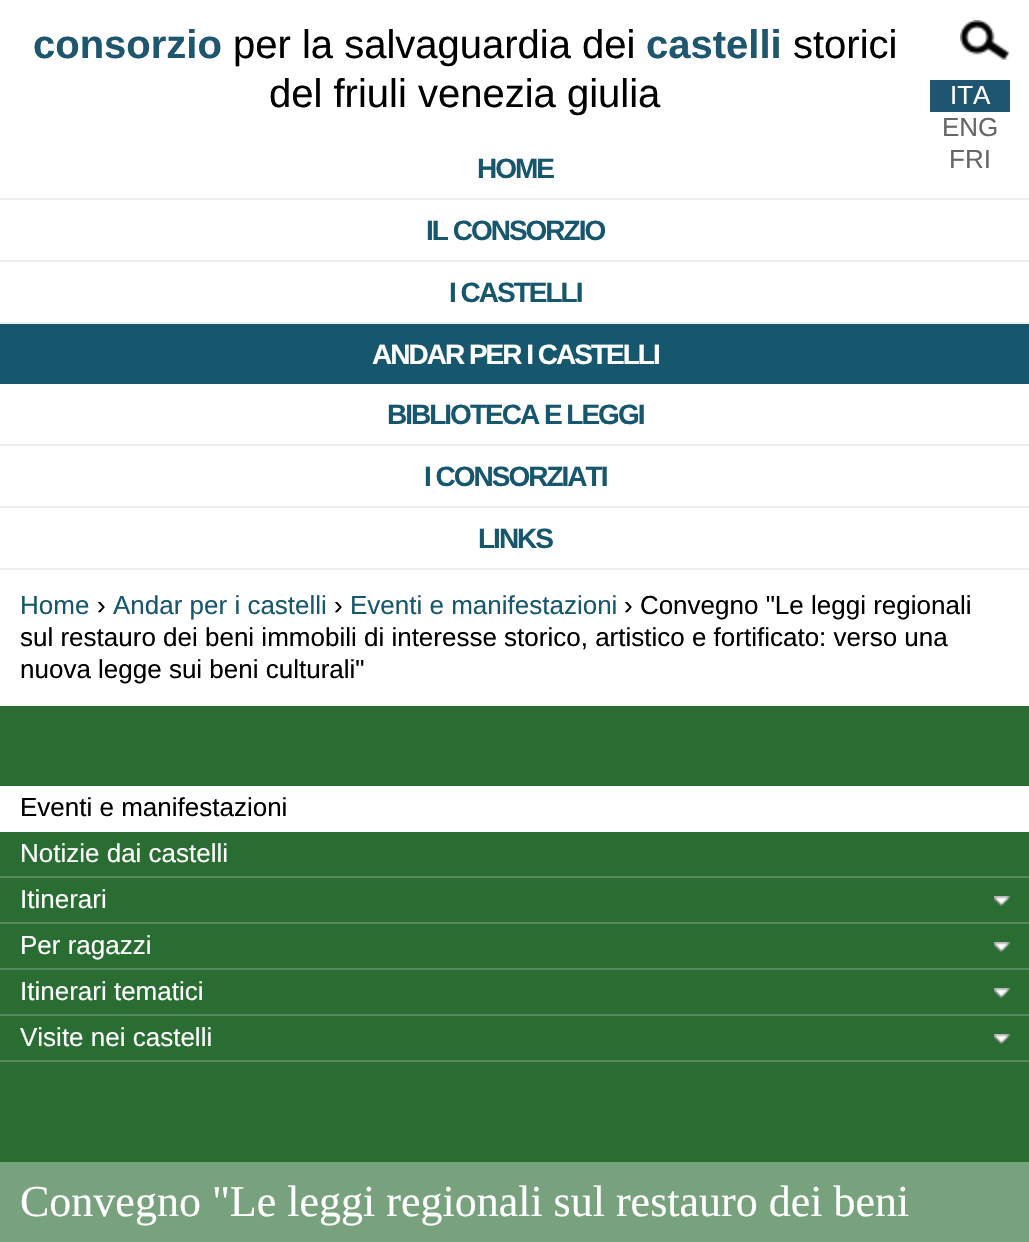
void draw(SkCanvas* canvas) {
    SkPaint paint;
    paint.setAntiAlias(true);
    auto face = [&](const char* family, int weight, float size, bool italic = false) {
        SkFontStyle style(weight, SkFontStyle::kNormal_Width,
            italic ? SkFontStyle::kItalic_Slant : SkFontStyle::kUpright_Slant);
        SkFont result(fontMgr->matchFamilyStyle(family, style), size);
        result.setSubpixel(true);
        return result;
    };
    auto write = [&](const char* s, float x, float y, const SkFont& font, SkColor color) {
        SkPaint ink(SkColor4f::FromColor(color));
        ink.setAntiAlias(true);
        canvas->drawString(s, x, y, font, ink);
    };
    auto writeSpaced = [&](const char* s, float x, float y, const SkFont& font, const SkPaint& ink, float letter, float word) {
        std::vector<SkGlyphID> glyphs(font.countText(s, strlen(s), SkTextEncoding::kUTF8));
        std::vector<float> xs(glyphs.size());
        font.textToGlyphs(s, strlen(s), SkTextEncoding::kUTF8, glyphs);
        font.getXPos(glyphs, xs, x);
        float extra = 0;
        for (size_t i = 0; i < glyphs.size(); i++) {
            xs[i] += extra;
            extra += letter + word * (glyphs[i] == font.unicharToGlyph(' '));
        }
        canvas->drawTextBlob(SkTextBlob::MakeFromPosHGlyphs(glyphs, xs, y, font), 0, 0, ink);
    };
    auto block = [&](float x, float y, float w, float h, SkColor color) {
        SkPaint ink(SkColor4f::FromColor(color));
        ink.setAntiAlias(true);
        canvas->drawRect(SkRect::MakeXYWH(x, y, w, h), ink);
    };
    auto paste = [&](const char* path, float x, float y, float w, float h) {
        auto image = SkImages::DeferredFromEncodedData(SkData::MakeFromFileName(path));
        canvas->drawImageRect(image, SkRect::MakeXYWH(x, y, w, h), SkSamplingOptions());
    };
    canvas->clear(SK_ColorWHITE);
    auto kFont1 = face("Liberation Sans", 700, 40);
    write("consorzio", 33, 58, kFont1, SkColorSetRGB(30, 86, 111));
    auto kFont2 = face("Liberation Sans", 400, 40);
    write("per la salvaguardia dei", 233, 58, kFont2, SK_ColorBLACK);
    write("castelli", 646, 58, kFont1, SkColorSetRGB(30, 86, 111));
    write("storici", 793, 58, kFont2, SK_ColorBLACK);
    write("del friuli venezia giulia", 269, 107, kFont2, SK_ColorBLACK);
    paste("pic1.png", 960, 20, 50, 40);
    block(930, 80, 80, 32, SkColorSetRGB(30, 86, 111));
    auto kFont3 = face("Liberation Sans", 400, 26);
    write("ITA", 950, 104, kFont3, SK_ColorWHITE);
    write("ENG", 942, 136, kFont3, SkColorSetRGB(102, 102, 102));
    write("FRI", 949, 168, kFont3, SkColorSetRGB(102, 102, 102));
    block(0, 198, 1029, 2, SkColorSetRGB(238, 238, 238));
    auto kFont4 = face("Liberation Sans", 700, 28);
    paint.setColor(SkColorSetRGB(23, 87, 109));
    writeSpaced("HOME", 477, 178, kFont4, paint, -2, 0);
    block(0, 260, 1029, 2, SkColorSetRGB(238, 238, 238));
    writeSpaced("IL CONSORZIO", 426, 240, kFont4, paint, -2, 0);
    block(0, 322, 1029, 2, SkColorSetRGB(238, 238, 238));
    writeSpaced("I CASTELLI", 449, 302, kFont4, paint, -2, 0);
    block(0, 324, 1029, 60, SkColorSetRGB(23, 87, 109));
    paint.setColor(SK_ColorWHITE);
    writeSpaced("ANDAR PER I CASTELLI", 372, 364, kFont4, paint, -2, 0);
    block(0, 444, 1029, 2, SkColorSetRGB(238, 238, 238));
    paint.setColor(SkColorSetRGB(23, 87, 109));
    writeSpaced("BIBLIOTECA E LEGGI", 387, 424, kFont4, paint, -2, 0);
    block(0, 506, 1029, 2, SkColorSetRGB(238, 238, 238));
    writeSpaced("I CONSORZIATI", 424, 486, kFont4, paint, -2, 0);
    block(0, 568, 1029, 2, SkColorSetRGB(238, 238, 238));
    writeSpaced("LINKS", 478, 548, kFont4, paint, -2, 0);
    write("Home", 20, 614, kFont3, SkColorSetRGB(23, 87, 109));
    write("›", 97, 614, kFont3, SK_ColorBLACK);
    write("Andar per i castelli", 113, 614, kFont3, SkColorSetRGB(23, 87, 109));
    write("›", 334, 614, kFont3, SK_ColorBLACK);
    write("Eventi e manifestazioni", 350, 614, kFont3, SkColorSetRGB(23, 87, 109));
    write("› Convegno \"Le leggi regionali", 624, 614, kFont3, SK_ColorBLACK);
    write("sul restauro dei beni immobili di interesse storico, artistico e fortificato: verso una", 20, 646, kFont3, SK_ColorBLACK);
    write("nuova legge sui beni culturali\"", 20, 678, kFont3, SK_ColorBLACK);
    block(0, 706, 1029, 456, SkColorSetRGB(42, 109, 51));
    block(0, 786, 1029, 46, SK_ColorWHITE);
    write("Eventi e manifestazioni", 20, 816, kFont3, SK_ColorBLACK);
    block(0, 876, 1029, 2, SkColorSetRGB(85, 138, 92));
    write("Notizie dai castelli", 20, 862, kFont3, SK_ColorWHITE);
    block(0, 922, 1029, 2, SkColorSetRGB(85, 138, 92));
    paste("pic2.png", 994, 896, 16, 10);
    write("Itinerari", 20, 908, kFont3, SK_ColorWHITE);
    block(0, 968, 1029, 2, SkColorSetRGB(85, 138, 92));
    paste("pic2.png", 994, 942, 16, 10);
    write("Per ragazzi", 20, 954, kFont3, SK_ColorWHITE);
    block(0, 1014, 1029, 2, SkColorSetRGB(85, 138, 92));
    paste("pic2.png", 994, 988, 16, 10);
    write("Itinerari tematici", 20, 1000, kFont3, SK_ColorWHITE);
    block(0, 1060, 1029, 2, SkColorSetRGB(85, 138, 92));
    paste("pic2.png", 994, 1034, 16, 10);
    write("Visite nei castelli", 20, 1046, kFont3, SK_ColorWHITE);
    block(0, 1162, 1029, 80, SkColorSetRGB(119, 162, 125));
    auto kFont5 = face("Liberation Serif", 400, 44);
    write("Convegno \"Le leggi regionali sul restauro dei beni", 20, 1216, kFont5, SK_ColorWHITE);
}
